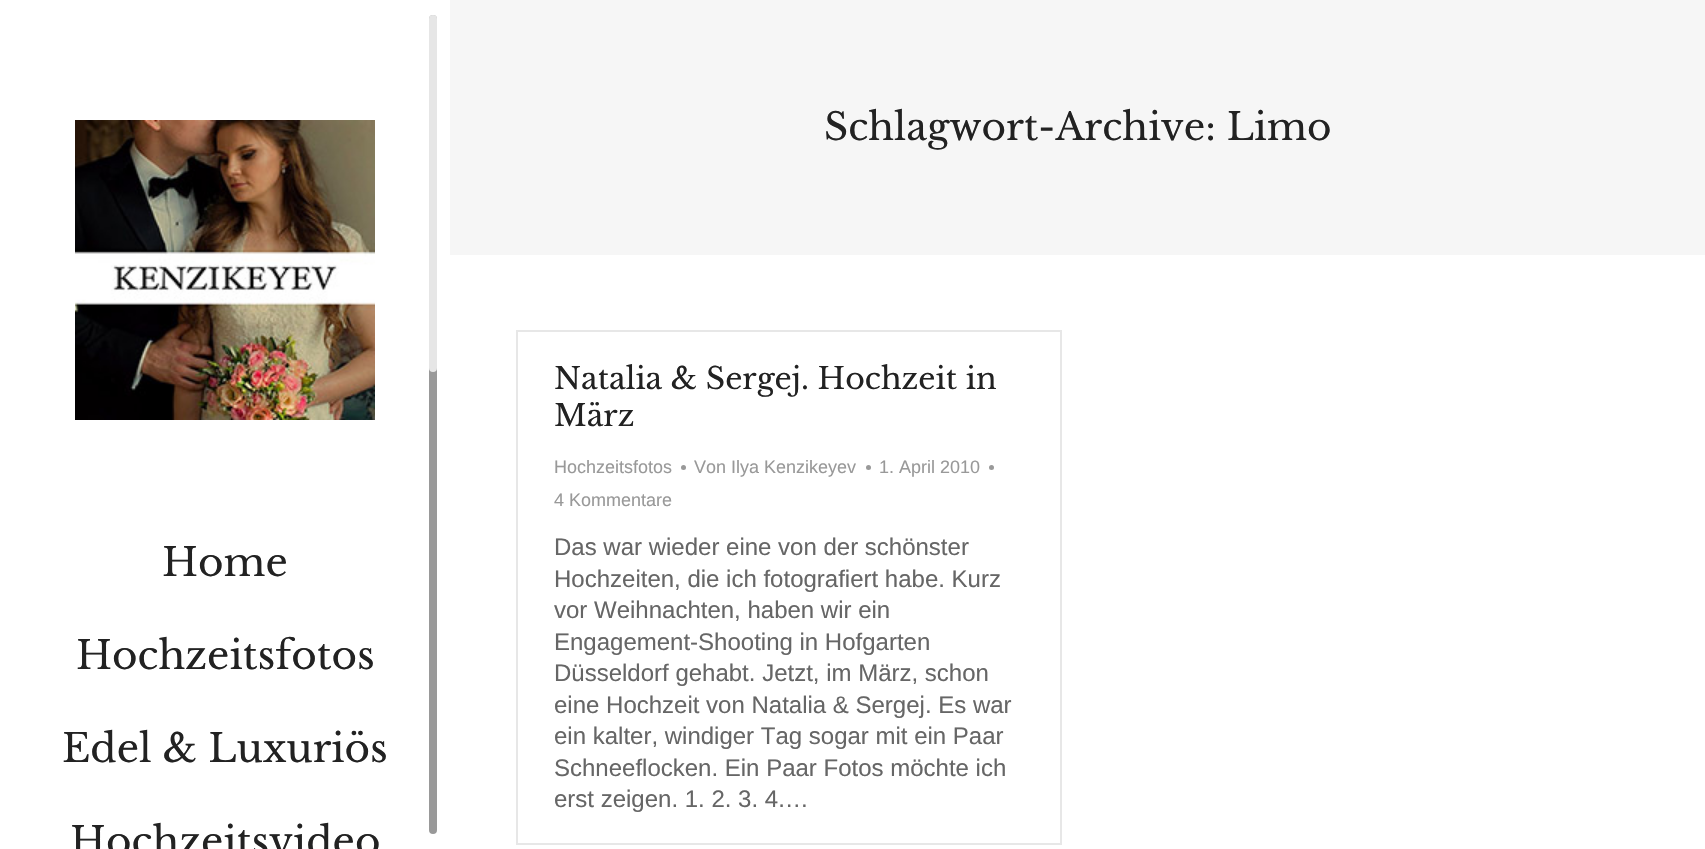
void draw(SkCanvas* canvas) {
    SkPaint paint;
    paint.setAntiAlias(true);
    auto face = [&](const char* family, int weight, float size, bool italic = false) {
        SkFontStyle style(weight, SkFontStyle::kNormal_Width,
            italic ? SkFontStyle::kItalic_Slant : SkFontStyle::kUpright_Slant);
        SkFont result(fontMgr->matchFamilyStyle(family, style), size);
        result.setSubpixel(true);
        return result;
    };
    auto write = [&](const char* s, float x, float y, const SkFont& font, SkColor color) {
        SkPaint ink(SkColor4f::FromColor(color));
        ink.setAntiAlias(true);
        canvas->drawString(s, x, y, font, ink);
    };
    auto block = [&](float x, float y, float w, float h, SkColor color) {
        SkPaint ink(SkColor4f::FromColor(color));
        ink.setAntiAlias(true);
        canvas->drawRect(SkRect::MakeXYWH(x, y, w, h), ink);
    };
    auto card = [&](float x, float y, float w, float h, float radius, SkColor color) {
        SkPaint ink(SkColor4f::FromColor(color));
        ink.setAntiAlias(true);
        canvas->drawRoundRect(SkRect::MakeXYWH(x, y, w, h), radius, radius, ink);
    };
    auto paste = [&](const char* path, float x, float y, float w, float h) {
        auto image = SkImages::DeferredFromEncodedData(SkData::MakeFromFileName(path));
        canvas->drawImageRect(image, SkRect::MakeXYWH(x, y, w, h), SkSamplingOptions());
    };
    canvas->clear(SK_ColorWHITE);
    block(450, 0, 1255, 255, SkColorSetRGB(246, 246, 246));
    auto kFont1 = face("Libre Baskerville", 400, 37.5f);
    write("Schlagwort-Archive: Limo", 824, 140, kFont1, SkColorSetRGB(34, 34, 34));
    paste("pic1.png", 75, 120, 300, 300);
    auto kFont2 = face("Libre Baskerville", 400, 39);
    write("Home", 162, 576, kFont2, SkColorSetRGB(34, 34, 34));
    write("Hochzeitsfotos", 76, 669, kFont2, SkColorSetRGB(34, 34, 34));
    write("Edel & Luxuriös", 62, 762, kFont2, SkColorSetRGB(34, 34, 34));
    write("Hochzeitsvideo", 70, 855, kFont2, SkColorSetRGB(34, 34, 34));
    card(429, 15, 8, 819, 4, SkColorSetRGB(153, 153, 153));
    card(429, 15, 8, 357, 4, SkColorSetARGB(191, 255, 255, 255));
    paint.setStyle(SkPaint::kStroke_Style);
    paint.setStrokeWidth(2);
    paint.setColor(SkColorSetRGB(231, 231, 231));
    canvas->drawRect(SkRect::MakeXYWH(517, 331, 544, 513), paint);
    auto kFont3 = face("Libre Baskerville", 400, 30);
    write("Natalia & Sergej. Hochzeit in", 554, 389, kFont3, SkColorSetRGB(34, 34, 34));
    write("März", 554, 426, kFont3, SkColorSetRGB(34, 34, 34));
    auto kFont4 = face("Liberation Sans", 400, 18);
    write("Hochzeitsfotos", 554, 473, kFont4, SkColorSetRGB(153, 153, 153));
    paint.setStyle(SkPaint::kFill_Style);
    paint.setColor(SkColorSetRGB(153, 153, 153));
    canvas->drawCircle(683.5f, 467.5f, 2.5f, paint);
    write("Von Ilya Kenzikeyev", 694, 473, kFont4, SkColorSetRGB(153, 153, 153));
    canvas->drawCircle(868.5f, 467.5f, 2.5f, paint);
    write("1. April 2010", 879, 473, kFont4, SkColorSetRGB(153, 153, 153));
    canvas->drawCircle(991.5f, 467.5f, 2.5f, paint);
    write("4 Kommentare", 554, 506, kFont4, SkColorSetRGB(153, 153, 153));
    auto kFont5 = face("Liberation Sans", 400, 24);
    write("Das war wieder eine von der schönster", 554, 555, kFont5, SkColorSetRGB(102, 102, 102));
    write("Hochzeiten, die ich fotografiert habe. Kurz", 554, 587, kFont5, SkColorSetRGB(102, 102, 102));
    write("vor Weihnachten, haben wir ein", 554, 618, kFont5, SkColorSetRGB(102, 102, 102));
    write("Engagement-Shooting in Hofgarten", 554, 650, kFont5, SkColorSetRGB(102, 102, 102));
    write("Düsseldorf gehabt. Jetzt, im März, schon", 554, 681, kFont5, SkColorSetRGB(102, 102, 102));
    write("eine Hochzeit von Natalia & Sergej. Es war", 554, 713, kFont5, SkColorSetRGB(102, 102, 102));
    write("ein kalter, windiger Tag sogar mit ein Paar", 554, 744, kFont5, SkColorSetRGB(102, 102, 102));
    write("Schneeflocken. Ein Paar Fotos möchte ich", 554, 776, kFont5, SkColorSetRGB(102, 102, 102));
    write("erst zeigen. 1. 2. 3. 4.…", 554, 807, kFont5, SkColorSetRGB(102, 102, 102));
}
